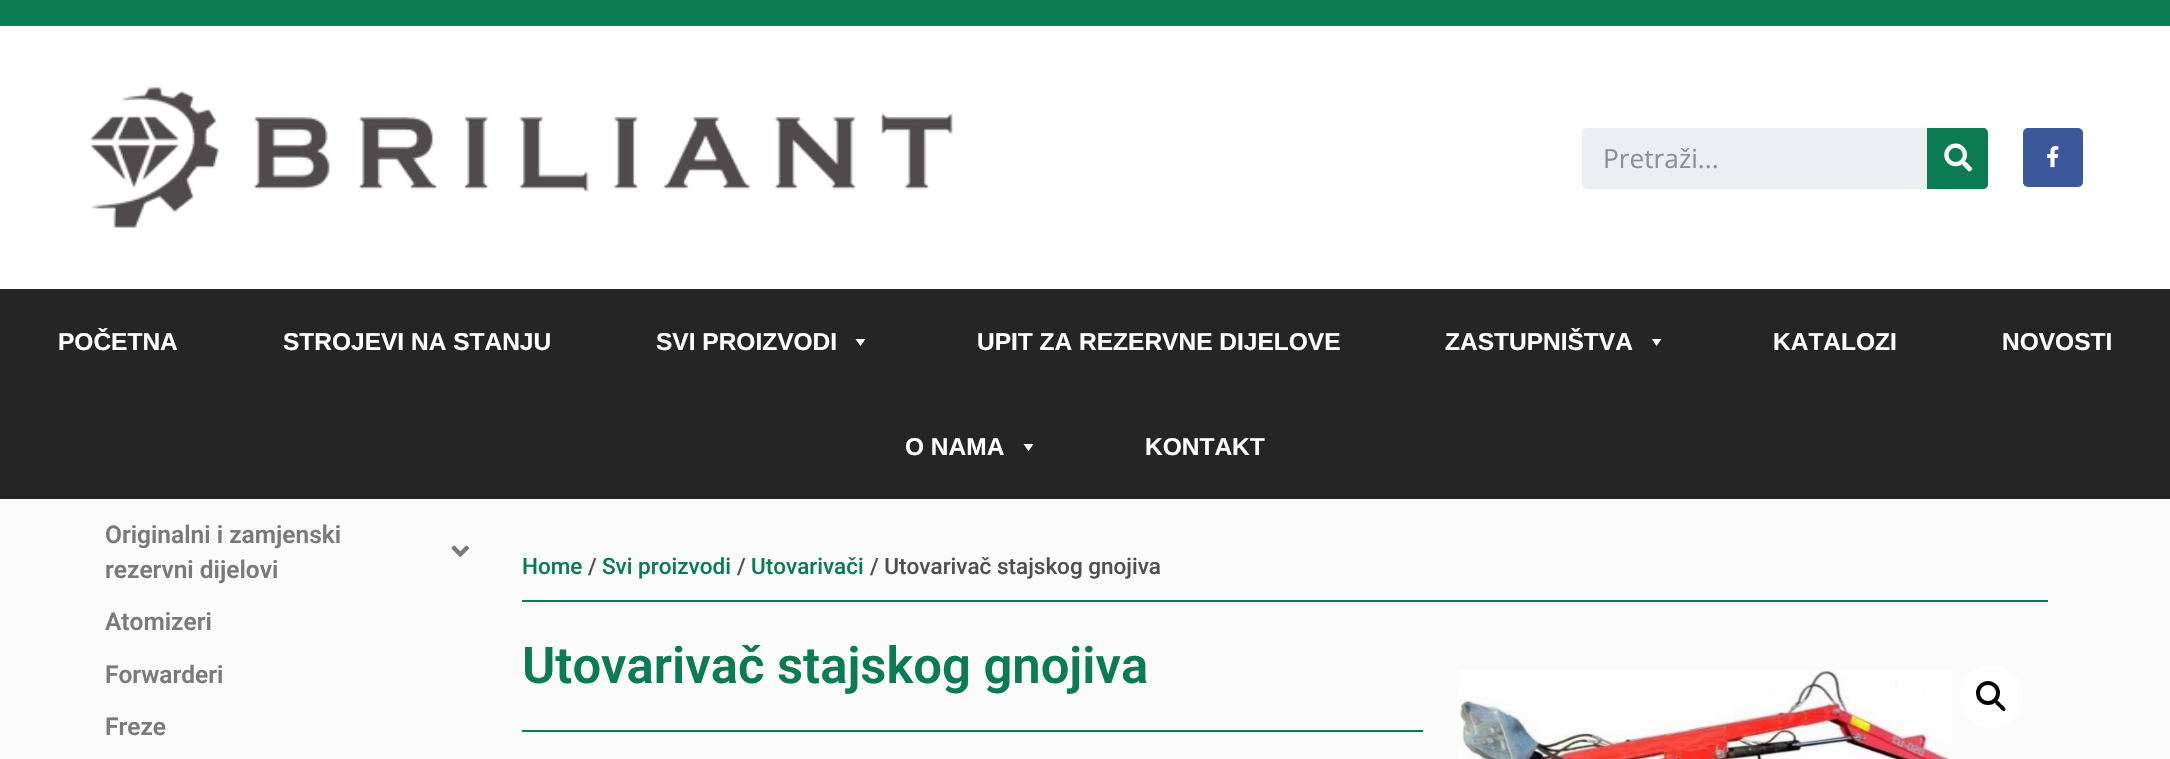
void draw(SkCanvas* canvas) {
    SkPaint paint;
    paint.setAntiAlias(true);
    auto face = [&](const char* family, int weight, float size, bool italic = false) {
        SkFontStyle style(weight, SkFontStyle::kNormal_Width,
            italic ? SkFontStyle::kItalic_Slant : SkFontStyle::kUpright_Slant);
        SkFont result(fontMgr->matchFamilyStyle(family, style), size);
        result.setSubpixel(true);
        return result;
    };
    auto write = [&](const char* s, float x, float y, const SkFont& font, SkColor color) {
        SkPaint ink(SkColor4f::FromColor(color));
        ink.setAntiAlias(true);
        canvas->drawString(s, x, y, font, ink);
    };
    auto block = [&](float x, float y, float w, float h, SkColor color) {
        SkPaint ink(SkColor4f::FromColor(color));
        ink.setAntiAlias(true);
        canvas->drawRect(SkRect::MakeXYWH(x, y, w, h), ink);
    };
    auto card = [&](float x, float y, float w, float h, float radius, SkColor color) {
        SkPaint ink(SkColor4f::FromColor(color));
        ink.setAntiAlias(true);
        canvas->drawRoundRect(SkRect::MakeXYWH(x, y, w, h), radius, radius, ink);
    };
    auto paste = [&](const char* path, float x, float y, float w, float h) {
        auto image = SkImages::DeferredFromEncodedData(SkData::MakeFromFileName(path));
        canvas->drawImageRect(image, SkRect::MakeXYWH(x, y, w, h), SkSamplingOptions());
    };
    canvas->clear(SkColorSetRGB(251, 251, 251));
    block(0, 26, 2170, 263, SK_ColorWHITE);
    block(0, 0, 2170, 26, SkColorSetRGB(10, 123, 83));
    paste("pic1.png", 90, 87, 863, 141);
    card(1582, 128, 406, 61, 5, SkColorSetRGB(236, 238, 239));
    auto kFont1 = face("Open Sans", 400, 26.25f);
    write("Pretraži...", 1603, 168, kFont1, SkColorSetRGB(142, 143, 143));
    paint.setColor(SkColorSetRGB(10, 123, 83));
    canvas->drawPath(SkPathBuilder().moveTo(1927, 128).lineTo(1983, 128).cubicTo(1986, 128, 1988, 130, 1988, 133).lineTo(1988, 184).cubicTo(1988, 187, 1986, 189, 1983, 189).lineTo(1927, 189).close().detach(), paint);
    paste("pic2.png", 1944, 143, 29, 29);
    card(2023, 128, 60, 59, 5, SkColorSetRGB(59, 89, 152));
    paste("pic3.png", 2047, 146, 12, 22);
    block(0, 289, 2170, 210, SkColorSetRGB(37, 37, 37));
    auto kFont2 = face("Liberation Sans", 700, 24.5f);
    write("POČETNA", 58, 350, kFont2, SK_ColorWHITE);
    write("STROJEVI NA STANJU", 283, 350, kFont2, SK_ColorWHITE);
    write("SVI PROIZVODI", 656, 350, kFont2, SK_ColorWHITE);
    paint.setColor(SK_ColorWHITE);
    canvas->drawPath(SkPathBuilder().moveTo(865.5f, 339).lineTo(860.5f, 346).lineTo(855.5f, 339).close().detach(), paint);
    write("UPIT ZA REZERVNE DIJELOVE", 977, 350, kFont2, SK_ColorWHITE);
    write("ZASTUPNIŠTVA", 1445, 350, kFont2, SK_ColorWHITE);
    canvas->drawPath(SkPathBuilder().moveTo(1661.5f, 339).lineTo(1656.5f, 346).lineTo(1652, 339).close().detach(), paint);
    write("KATALOZI", 1773, 350, kFont2, SK_ColorWHITE);
    write("NOVOSTI", 2002, 350, kFont2, SK_ColorWHITE);
    write("O NAMA", 905, 455, kFont2, SK_ColorWHITE);
    canvas->drawPath(SkPathBuilder().moveTo(1033.5f, 444).lineTo(1028.5f, 451).lineTo(1023.5f, 444).close().detach(), paint);
    write("KONTAKT", 1145, 455, kFont2, SK_ColorWHITE);
    auto kFont3 = face("Roboto", 600, 24.5f);
    write("Originalni i zamjenski", 105, 543, kFont3, SkColorSetRGB(122, 122, 122));
    paste("pic4.png", 451, 545, 18, 12);
    write("rezervni dijelovi", 105, 578, kFont3, SkColorSetRGB(122, 122, 122));
    write("Atomizeri", 105, 630, kFont3, SkColorSetRGB(122, 122, 122));
    write("Forwarderi", 105, 683, kFont3, SkColorSetRGB(122, 122, 122));
    write("Freze", 105, 735, kFont3, SkColorSetRGB(122, 122, 122));
    auto kFont4 = face("Roboto", 500, 22.5f);
    write("Home", 522, 574, kFont4, SkColorSetRGB(10, 123, 83));
    write("/", 588, 574, kFont4, SkColorSetRGB(79, 79, 79));
    write("Svi proizvodi", 602, 574, kFont4, SkColorSetRGB(10, 123, 83));
    write("/", 737, 574, kFont4, SkColorSetRGB(79, 79, 79));
    write("Utovarivači", 751, 574, kFont4, SkColorSetRGB(10, 123, 83));
    write("/ Utovarivač stajskog gnojiva", 870, 574, kFont4, SkColorSetRGB(79, 79, 79));
    block(522, 600, 1526, 2, SkColorSetRGB(10, 123, 83));
    auto kFont5 = face("Roboto", 600, 50.75f);
    write("Utovarivač stajskog gnojiva", 522, 683, kFont5, SkColorSetRGB(10, 123, 83));
    block(522, 730, 901, 2, SkColorSetRGB(10, 123, 83));
    paste("pic5.png", 1458, 670, 494, 89);
    canvas->drawCircle(1991.5f, 696.5f, 31.5f, paint);
    paint.setStyle(SkPaint::kStroke_Style);
    paint.setStrokeWidth(4);
    paint.setColor(SK_ColorBLACK);
    canvas->drawCircle(1988, 693, 10, paint);
    paint.setStyle(SkPaint::kFill_Style);
    canvas->drawPath(SkPathBuilder().moveTo(1995.5f, 701).cubicTo(1997.5f, 699, 2000.5f, 703.5f, 2001.5f, 704.5f).cubicTo(2002.5f, 705.5f, 2007, 708.5f, 2005, 710.5f).cubicTo(2003, 712.5f, 2000, 708, 1999, 707).cubicTo(1998, 706, 1993.5f, 703, 1995.5f, 701).close().detach(), paint);
}
